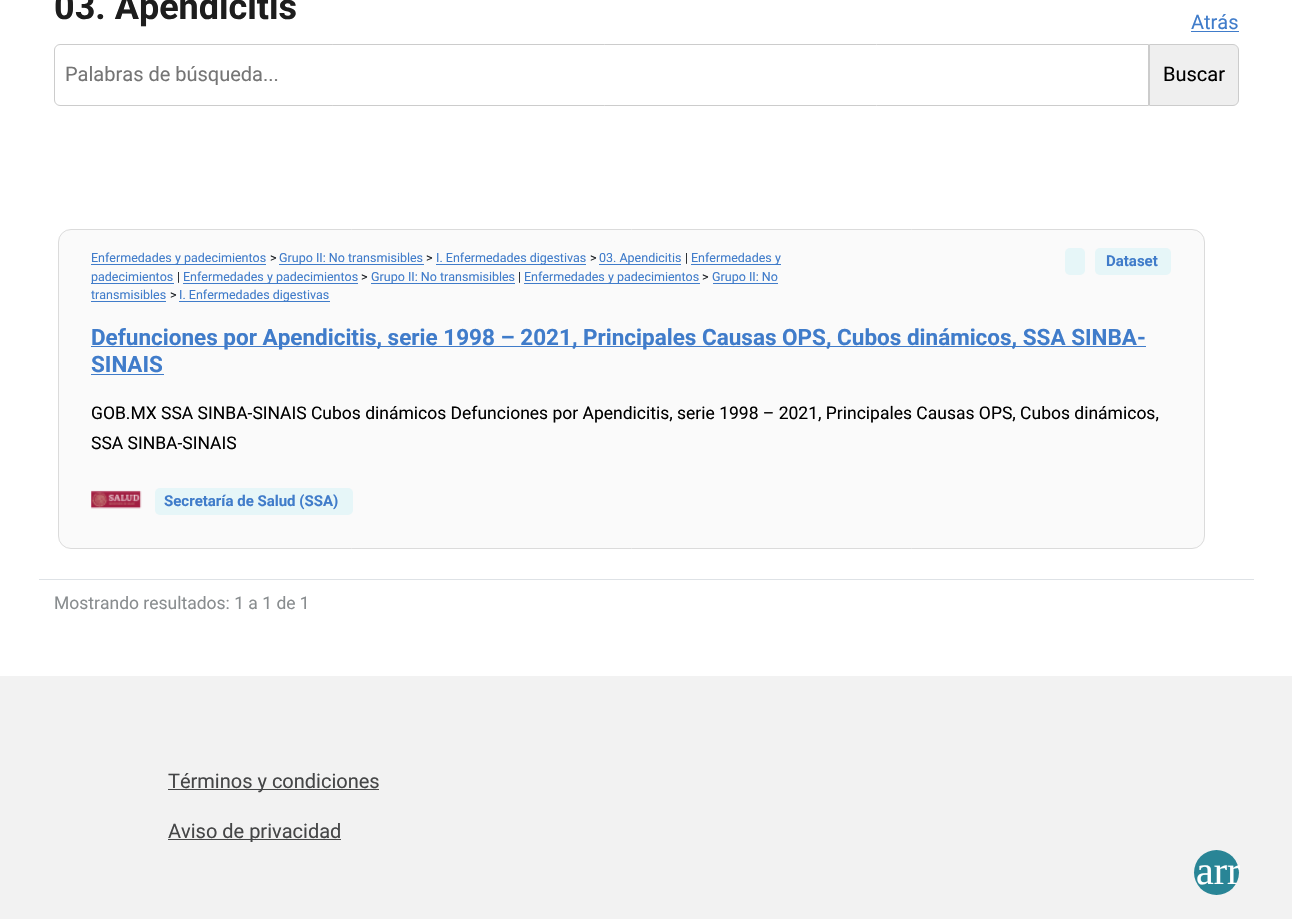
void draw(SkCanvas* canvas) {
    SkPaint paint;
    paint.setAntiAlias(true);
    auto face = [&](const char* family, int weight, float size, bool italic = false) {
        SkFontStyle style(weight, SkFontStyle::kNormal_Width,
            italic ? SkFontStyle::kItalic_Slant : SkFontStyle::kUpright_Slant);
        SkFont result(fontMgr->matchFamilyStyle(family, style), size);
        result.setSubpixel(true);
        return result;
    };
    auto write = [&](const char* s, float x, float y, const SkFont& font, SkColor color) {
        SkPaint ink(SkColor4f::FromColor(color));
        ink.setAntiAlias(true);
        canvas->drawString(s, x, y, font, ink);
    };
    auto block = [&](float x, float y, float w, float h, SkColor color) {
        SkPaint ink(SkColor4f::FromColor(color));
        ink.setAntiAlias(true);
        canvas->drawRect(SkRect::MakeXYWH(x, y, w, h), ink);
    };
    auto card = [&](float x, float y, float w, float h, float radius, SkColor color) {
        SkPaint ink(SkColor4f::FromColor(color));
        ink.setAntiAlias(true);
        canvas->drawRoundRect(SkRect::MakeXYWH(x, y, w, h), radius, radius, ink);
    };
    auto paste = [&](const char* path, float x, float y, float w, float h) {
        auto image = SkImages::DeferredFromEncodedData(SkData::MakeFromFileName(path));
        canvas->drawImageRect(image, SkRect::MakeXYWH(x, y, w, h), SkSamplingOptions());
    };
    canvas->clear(SK_ColorWHITE);
    auto kFont1 = face("Roboto", 700, 36);
    write("03. Apendicitis", 54, 19, kFont1, SkColorSetRGB(29, 29, 29));
    auto kFont2 = face("Roboto", 400, 20);
    write("Atrás", 1191, 29, kFont2, SkColorSetRGB(64, 124, 202));
    block(1191, 31, 48, 1, SkColorSetRGB(64, 124, 202));
    paint.setStyle(SkPaint::kStroke_Style);
    paint.setStrokeWidth(1);
    paint.setColor(SkColorSetRGB(204, 204, 204));
    canvas->drawPath(SkPathBuilder().moveTo(60, 44.5f).lineTo(1148.5f, 44.5f).lineTo(1148.5f, 105.5f).lineTo(60, 105.5f).cubicTo(57, 105.5f, 54.5f, 103, 54.5f, 100).lineTo(54.5f, 50).cubicTo(54.5f, 47, 57, 44.5f, 60, 44.5f).close().detach(), paint);
    write("Palabras de búsqueda...", 65, 81, kFont2, SkColorSetRGB(117, 117, 117));
    paint.setStyle(SkPaint::kFill_Style);
    paint.setColor(SkColorSetRGB(239, 239, 239));
    canvas->drawPath(SkPathBuilder().moveTo(1149.5f, 44.5f).lineTo(1233, 44.5f).cubicTo(1236, 44.5f, 1238.5f, 47, 1238.5f, 50).lineTo(1238.5f, 100).cubicTo(1238.5f, 103, 1236, 105.5f, 1233, 105.5f).lineTo(1149.5f, 105.5f).close().detach(), paint);
    paint.setStyle(SkPaint::kStroke_Style);
    paint.setColor(SkColorSetRGB(204, 204, 204));
    canvas->drawPath(SkPathBuilder().moveTo(1149.5f, 44.5f).lineTo(1233, 44.5f).cubicTo(1236, 44.5f, 1238.5f, 47, 1238.5f, 50).lineTo(1238.5f, 100).cubicTo(1238.5f, 103, 1236, 105.5f, 1233, 105.5f).lineTo(1149.5f, 105.5f).close().detach(), paint);
    write("Buscar", 1163, 81, kFont2, SK_ColorBLACK);
    paint.setStyle(SkPaint::kFill_Style);
    paint.setColor(SkColorSetRGB(250, 250, 250));
    canvas->drawRoundRect(SkRect::MakeXYWH(58.5f, 229.5f, 1146, 319), 12.5f, 12.5f, paint);
    paint.setStyle(SkPaint::kStroke_Style);
    paint.setColor(SkColorSetRGB(219, 219, 219));
    canvas->drawRoundRect(SkRect::MakeXYWH(58.5f, 229.5f, 1146, 319), 12.5f, 12.5f, paint);
    block(91, 264, 175, 1, SkColorSetRGB(64, 124, 202));
    auto kFont3 = face("Roboto", 400, 12.5f);
    write("Enfermedades y padecimientos", 91, 262, kFont3, SkColorSetRGB(64, 124, 202));
    write(">", 270, 262, kFont3, SkColorSetRGB(33, 37, 41));
    block(279, 264, 145, 1, SkColorSetRGB(64, 124, 202));
    write("Grupo II: No transmisibles", 279, 262, kFont3, SkColorSetRGB(64, 124, 202));
    write(">", 426, 262, kFont3, SkColorSetRGB(33, 37, 41));
    block(436, 264, 150, 1, SkColorSetRGB(64, 124, 202));
    write("I. Enfermedades digestivas", 436, 262, kFont3, SkColorSetRGB(64, 124, 202));
    write(">", 590, 262, kFont3, SkColorSetRGB(33, 37, 41));
    block(599, 264, 82, 1, SkColorSetRGB(64, 124, 202));
    write("03. Apendicitis", 599, 262, kFont3, SkColorSetRGB(64, 124, 202));
    write("|", 685, 262, kFont3, SkColorSetRGB(33, 37, 41));
    block(691, 264, 90, 1, SkColorSetRGB(64, 124, 202));
    write("Enfermedades y", 691, 262, kFont3, SkColorSetRGB(64, 124, 202));
    block(91, 283, 83, 1, SkColorSetRGB(64, 124, 202));
    write("padecimientos", 91, 281, kFont3, SkColorSetRGB(64, 124, 202));
    write("|", 177, 281, kFont3, SkColorSetRGB(33, 37, 41));
    block(183, 283, 175, 1, SkColorSetRGB(64, 124, 202));
    write("Enfermedades y padecimientos", 183, 281, kFont3, SkColorSetRGB(64, 124, 202));
    write(">", 361, 281, kFont3, SkColorSetRGB(33, 37, 41));
    block(371, 283, 144, 1, SkColorSetRGB(64, 124, 202));
    write("Grupo II: No transmisibles", 371, 281, kFont3, SkColorSetRGB(64, 124, 202));
    write("|", 518, 281, kFont3, SkColorSetRGB(33, 37, 41));
    block(524, 283, 176, 1, SkColorSetRGB(64, 124, 202));
    write("Enfermedades y padecimientos", 524, 281, kFont3, SkColorSetRGB(64, 124, 202));
    write(">", 702, 281, kFont3, SkColorSetRGB(33, 37, 41));
    block(713, 283, 65, 1, SkColorSetRGB(64, 124, 202));
    write("Grupo II: No", 712, 281, kFont3, SkColorSetRGB(64, 124, 202));
    write("transmisibles", 91, 299, kFont3, SkColorSetRGB(64, 124, 202));
    block(91, 301, 75, 1, SkColorSetRGB(64, 124, 202));
    write(">", 170, 299, kFont3, SkColorSetRGB(33, 37, 41));
    block(179, 301, 151, 1, SkColorSetRGB(64, 124, 202));
    write("I. Enfermedades digestivas", 179, 299, kFont3, SkColorSetRGB(64, 124, 202));
    card(1065, 248, 20, 27, 5, SkColorSetRGB(230, 246, 248));
    card(1095, 248, 76, 27, 5, SkColorSetRGB(230, 246, 248));
    auto kFont4 = face("Roboto", 700, 15);
    write("Dataset", 1106, 266, kFont4, SkColorSetRGB(64, 124, 202));
    block(91, 346, 1055, 1, SkColorSetRGB(64, 124, 202));
    auto kFont5 = face("Roboto", 700, 22.5f);
    write("Defunciones por Apendicitis, serie 1998 – 2021, Principales Causas OPS, Cubos dinámicos, SSA SINBA-", 91, 345, kFont5, SkColorSetRGB(64, 124, 202));
    write("SINAIS", 91, 372, kFont5, SkColorSetRGB(64, 124, 202));
    block(91, 374, 73, 1, SkColorSetRGB(64, 124, 202));
    auto kFont6 = face("Roboto", 400, 17.5f);
    write("GOB.MX SSA SINBA-SINAIS Cubos dinámicos Defunciones por Apendicitis, serie 1998 – 2021, Principales Causas OPS, Cubos dinámicos,", 91, 419, kFont6, SK_ColorBLACK);
    write("SSA SINBA-SINAIS", 91, 449, kFont6, SK_ColorBLACK);
    paste("pic1.png", 91, 490, 51, 19);
    card(155, 488, 198, 27, 5, SkColorSetRGB(230, 246, 248));
    write("Secretaría de Salud (SSA)", 164, 506, kFont4, SkColorSetRGB(64, 124, 202));
    block(39, 579, 1215, 1, SkColorSetRGB(222, 226, 230));
    write("Mostrando resultados: 1 a 1 de 1", 54, 609, kFont6, SkColorSetRGB(137, 141, 143));
    block(0, 676, 1292, 243, SkColorSetRGB(242, 242, 242));
    block(168, 789, 211, 1, SkColorSetRGB(69, 70, 71));
    write("Términos y condiciones", 168, 788, kFont2, SkColorSetRGB(69, 70, 71));
    block(168, 839, 173, 1, SkColorSetRGB(69, 70, 71));
    write("Aviso de privacidad", 168, 838, kFont2, SkColorSetRGB(69, 70, 71));
    paint.setStyle(SkPaint::kFill_Style);
    paint.setColor(SkColorSetRGB(41, 133, 150));
    canvas->drawCircle(1216.5f, 872.5f, 22.5f, paint);
    auto kFont7 = face("Liberation Serif", 400, 40);
    write("arr", 1196, 884, kFont7, SK_ColorWHITE);
}
